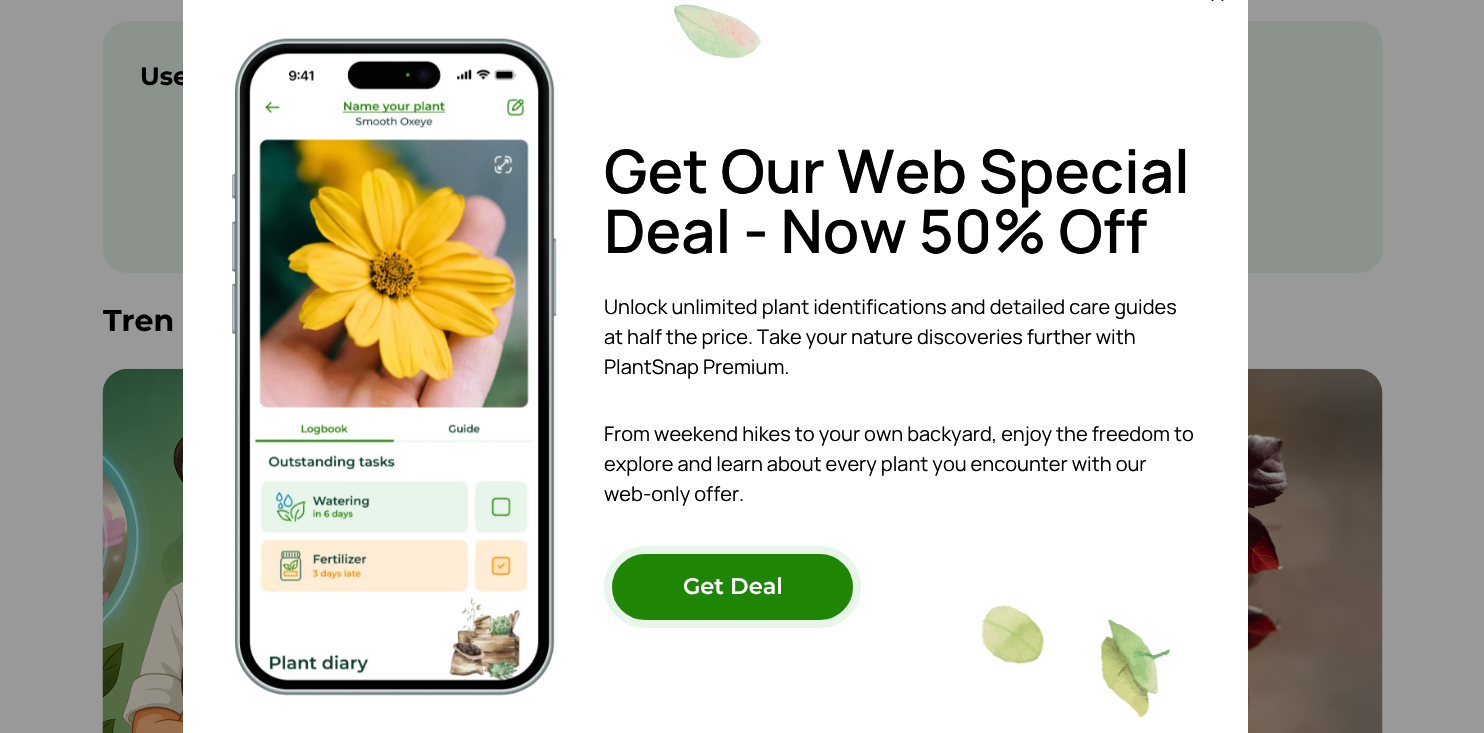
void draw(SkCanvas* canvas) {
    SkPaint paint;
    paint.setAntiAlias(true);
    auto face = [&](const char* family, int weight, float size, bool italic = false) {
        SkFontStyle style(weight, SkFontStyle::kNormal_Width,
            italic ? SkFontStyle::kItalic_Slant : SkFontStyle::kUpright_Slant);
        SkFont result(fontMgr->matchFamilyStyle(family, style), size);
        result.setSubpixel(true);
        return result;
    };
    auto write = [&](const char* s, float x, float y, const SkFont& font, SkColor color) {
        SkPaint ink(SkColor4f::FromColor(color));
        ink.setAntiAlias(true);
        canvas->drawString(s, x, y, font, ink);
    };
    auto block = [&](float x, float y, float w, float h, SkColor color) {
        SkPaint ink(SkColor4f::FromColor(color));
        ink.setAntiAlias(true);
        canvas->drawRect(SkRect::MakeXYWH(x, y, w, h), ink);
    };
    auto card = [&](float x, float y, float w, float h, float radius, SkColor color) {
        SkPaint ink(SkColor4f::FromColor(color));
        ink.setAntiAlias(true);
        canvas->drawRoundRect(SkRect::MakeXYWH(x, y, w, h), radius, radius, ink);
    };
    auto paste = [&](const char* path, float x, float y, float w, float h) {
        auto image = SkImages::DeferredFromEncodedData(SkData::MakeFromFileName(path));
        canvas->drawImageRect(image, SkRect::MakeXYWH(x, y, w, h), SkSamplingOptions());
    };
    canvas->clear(SkColorSetRGB(153, 153, 153));
    card(103, 21, 1280, 252, 25, SkColorSetRGB(139, 147, 140));
    auto kFont1 = face("Montserrat", 700, 25);
    write("Use", 140, 85, kFont1, SK_ColorBLACK);
    auto kFont2 = face("Montserrat", 700, 30);
    write("Tren", 103, 331, kFont2, SK_ColorBLACK);
    paste("pic1.png", 102, 368, 81, 365);
    paste("pic2.png", 1248, 368, 135, 365);
    block(183, 0, 1065, 733, SK_ColorWHITE);
    paint.setStyle(SkPaint::kStroke_Style);
    paint.setStrokeWidth(1.8f);
    paint.setStrokeCap(SkPaint::kRound_Cap);
    paint.setStrokeJoin(SkPaint::kRound_Join);
    paint.setColor(SK_ColorBLACK);
    canvas->drawPath(SkPathBuilder().moveTo(1222.5f, -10).lineTo(1212.5f, 0).moveTo(1212.5f, -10).lineTo(1222.5f, 0).detach(), paint);
    paste("pic3.png", 674, 4, 87, 55);
    paste("pic4.png", 232, 38, 325, 658);
    auto kFont3 = face("Manrope", 600, 60);
    write("Get Our Web Special", 604, 193, kFont3, SK_ColorBLACK);
    write("Deal - Now 50% Off", 604, 253, kFont3, SK_ColorBLACK);
    auto kFont4 = face("Manrope", 400, 20);
    write("Unlock unlimited plant identifications and detailed care guides", 604, 314, kFont4, SK_ColorBLACK);
    write("at half the price. Take your nature discoveries further with", 604, 344, kFont4, SK_ColorBLACK);
    write("PlantSnap Premium.", 604, 374, kFont4, SK_ColorBLACK);
    write("From weekend hikes to your own backyard, enjoy the freedom to", 604, 441, kFont4, SK_ColorBLACK);
    write("explore and learn about every plant you encounter with our", 604, 471, kFont4, SK_ColorBLACK);
    write("web-only offer.", 604, 501, kFont4, SK_ColorBLACK);
    paint.setStyle(SkPaint::kFill_Style);
    paint.setColor(SkColorSetRGB(31, 133, 5));
    canvas->drawRoundRect(SkRect::MakeXYWH(608, 550, 249, 74), 37, 37, paint);
    paint.setStyle(SkPaint::kStroke_Style);
    paint.setStrokeWidth(8);
    paint.setStrokeCap(SkPaint::kButt_Cap);
    paint.setStrokeJoin(SkPaint::kMiter_Join);
    paint.setColor(SkColorSetRGB(232, 245, 233));
    canvas->drawRoundRect(SkRect::MakeXYWH(608, 550, 249, 74), 37, 37, paint);
    auto kFont5 = face("Montserrat", 600, 22.5f);
    write("Get Deal", 683, 594, kFont5, SK_ColorWHITE);
    paste("pic5.png", 981, 605, 64, 59);
    paste("pic6.png", 1100, 619, 71, 98);
}
